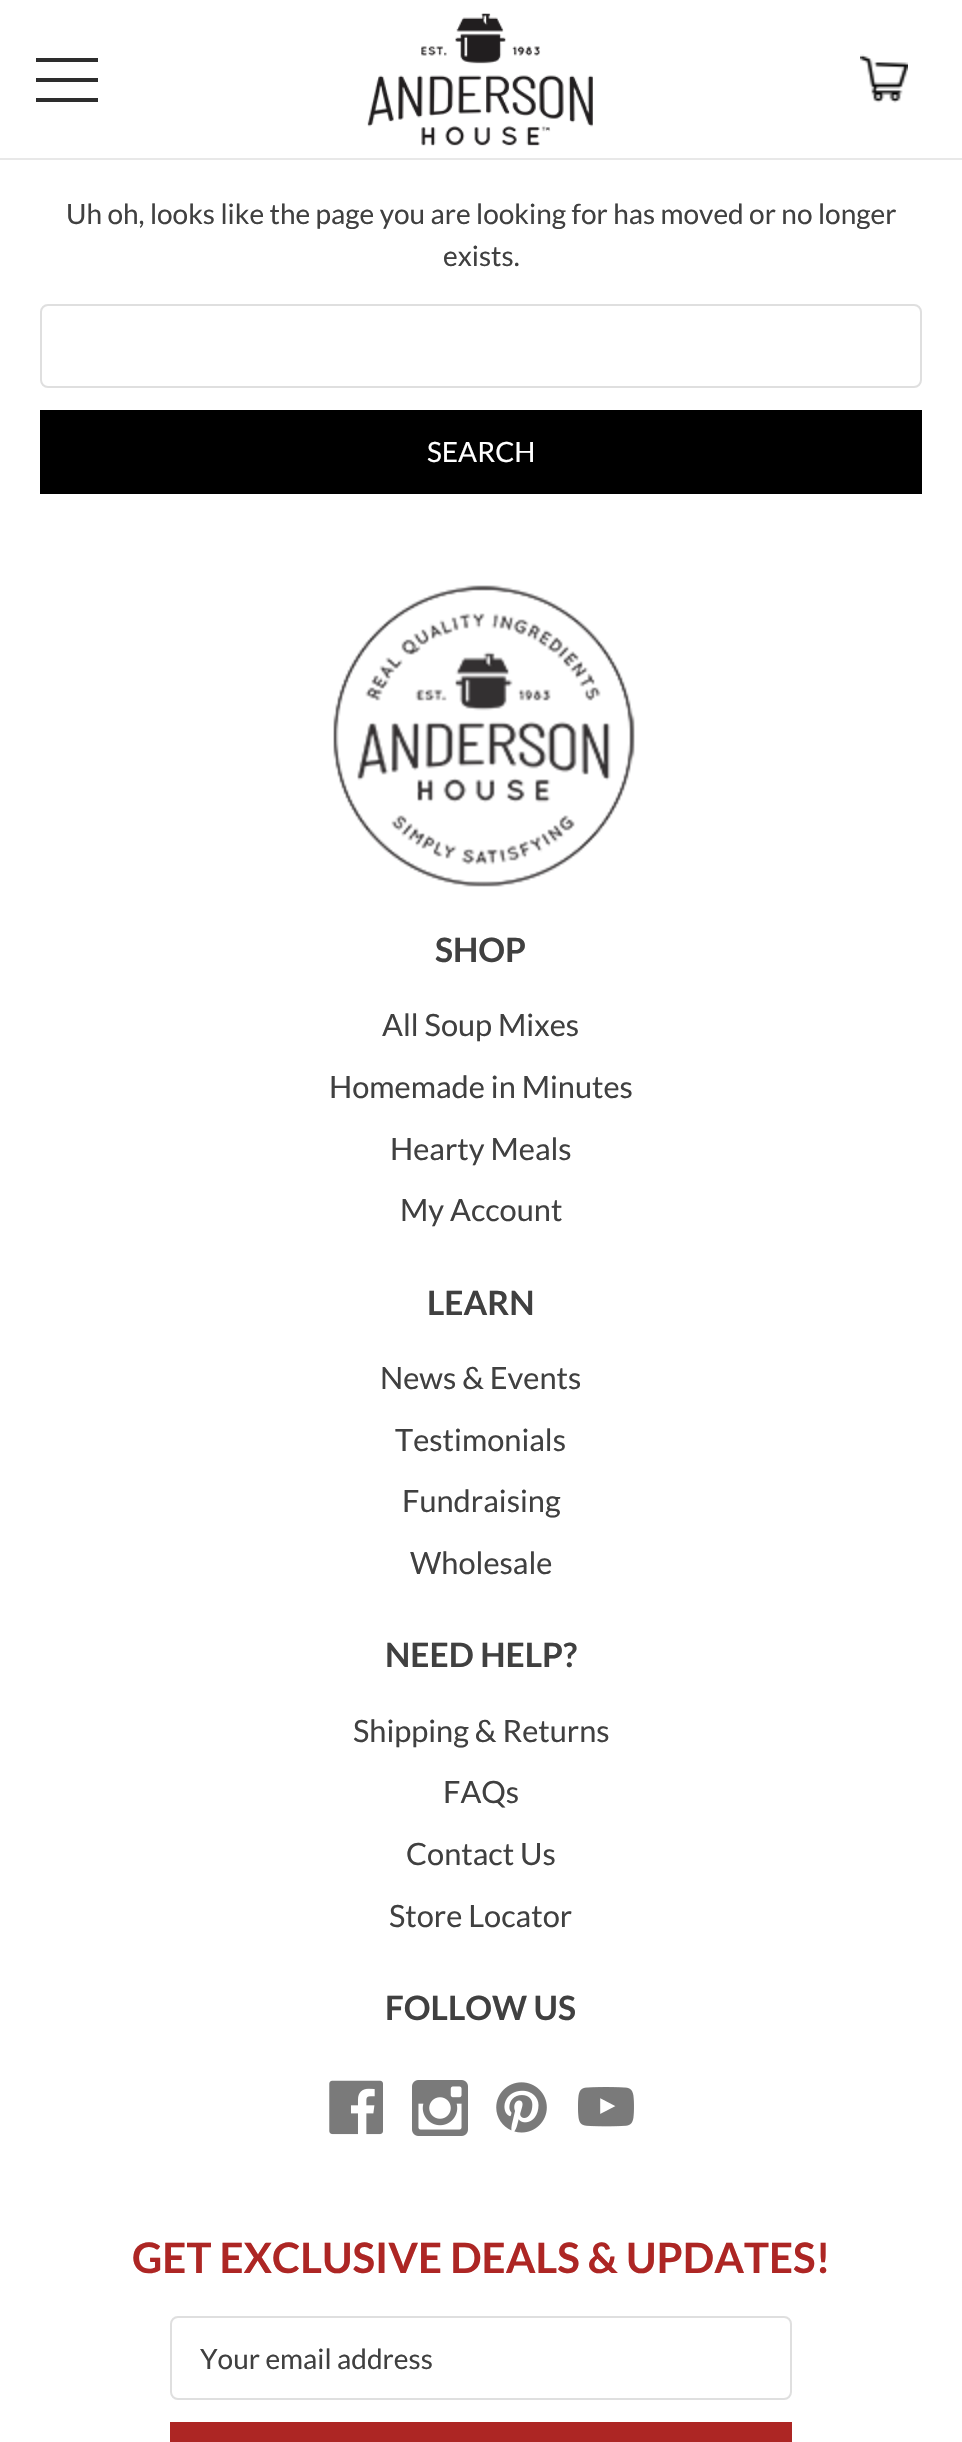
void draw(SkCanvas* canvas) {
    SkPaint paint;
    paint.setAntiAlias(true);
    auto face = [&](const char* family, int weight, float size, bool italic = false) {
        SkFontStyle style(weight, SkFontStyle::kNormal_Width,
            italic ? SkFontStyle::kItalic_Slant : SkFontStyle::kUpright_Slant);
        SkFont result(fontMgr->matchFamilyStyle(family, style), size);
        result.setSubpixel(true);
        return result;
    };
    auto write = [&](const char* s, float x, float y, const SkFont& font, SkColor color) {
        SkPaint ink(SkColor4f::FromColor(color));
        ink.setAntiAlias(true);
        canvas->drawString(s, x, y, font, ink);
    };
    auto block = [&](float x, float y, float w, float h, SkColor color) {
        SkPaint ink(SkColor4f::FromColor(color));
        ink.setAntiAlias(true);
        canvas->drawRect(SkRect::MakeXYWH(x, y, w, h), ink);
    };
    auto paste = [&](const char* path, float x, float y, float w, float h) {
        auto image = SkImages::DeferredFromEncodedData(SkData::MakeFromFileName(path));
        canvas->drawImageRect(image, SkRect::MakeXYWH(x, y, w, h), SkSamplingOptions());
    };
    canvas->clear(SK_ColorWHITE);
    block(0, 158, 962, 2, SkColorSetRGB(232, 232, 232));
    block(36, 78, 62, 4, SkColorSetRGB(45, 45, 45));
    block(36, 58, 62, 4, SkColorSetRGB(45, 45, 45));
    block(36, 98, 62, 4, SkColorSetRGB(45, 45, 45));
    paste("pic1.png", 367, 13, 226, 133);
    paste("pic2.png", 860, 54, 48, 49);
    auto kFont1 = face("Lato", 400, 28);
    write("Uh oh, looks like the page you are looking for has moved or no longer", 66, 224, kFont1, SkColorSetRGB(64, 64, 64));
    write("exists.", 443, 266, kFont1, SkColorSetRGB(64, 64, 64));
    paint.setStyle(SkPaint::kStroke_Style);
    paint.setStrokeWidth(2);
    paint.setColor(SkColorSetRGB(223, 223, 223));
    canvas->drawRoundRect(SkRect::MakeXYWH(41, 305, 880, 82), 7, 7, paint);
    block(40, 410, 882, 84, SK_ColorBLACK);
    write("SEARCH", 427, 462, kFont1, SK_ColorWHITE);
    paste("pic3.png", 333, 585, 302, 302);
    auto kFont2 = face("Lato", 700, 33.5f);
    write("SHOP", 435, 962, kFont2, SkColorSetRGB(64, 64, 64));
    auto kFont3 = face("Lato", 400, 30.75f);
    write("All Soup Mixes", 382, 1036, kFont3, SkColorSetRGB(64, 64, 64));
    write("Homemade in Minutes", 329, 1098, kFont3, SkColorSetRGB(64, 64, 64));
    write("Hearty Meals", 390, 1160, kFont3, SkColorSetRGB(64, 64, 64));
    write("My Account", 400, 1221, kFont3, SkColorSetRGB(64, 64, 64));
    write("LEARN", 427, 1315, kFont2, SkColorSetRGB(64, 64, 64));
    write("News & Events", 380, 1389, kFont3, SkColorSetRGB(64, 64, 64));
    write("Testimonials", 395, 1451, kFont3, SkColorSetRGB(64, 64, 64));
    write("Fundraising", 402, 1512, kFont3, SkColorSetRGB(64, 64, 64));
    write("Wholesale", 410, 1574, kFont3, SkColorSetRGB(64, 64, 64));
    write("NEED HELP?", 385, 1667, kFont2, SkColorSetRGB(64, 64, 64));
    write("Shipping & Returns", 353, 1742, kFont3, SkColorSetRGB(64, 64, 64));
    write("FAQs", 443, 1803, kFont3, SkColorSetRGB(64, 64, 64));
    write("Contact Us", 406, 1865, kFont3, SkColorSetRGB(64, 64, 64));
    write("Store Locator", 389, 1927, kFont3, SkColorSetRGB(64, 64, 64));
    write("FOLLOW US", 385, 2020, kFont2, SkColorSetRGB(64, 64, 64));
    paste("pic4.png", 329, 2080, 54, 55);
    paste("pic5.png", 412, 2080, 56, 56);
    paste("pic6.png", 496, 2082, 51, 51);
    paste("pic7.png", 578, 2087, 56, 40);
    auto kFont4 = face("Lato", 700, 42);
    write("GET EXCLUSIVE DEALS & UPDATES!", 132, 2273, kFont4, SkColorSetRGB(173, 38, 36));
    canvas->drawRoundRect(SkRect::MakeXYWH(171, 2317, 620, 82), 7, 7, paint);
    write("Your email address", 200, 2369, kFont1, SkColorSetRGB(64, 64, 64));
    block(170, 2422, 622, 20, SkColorSetRGB(173, 38, 36));
}
